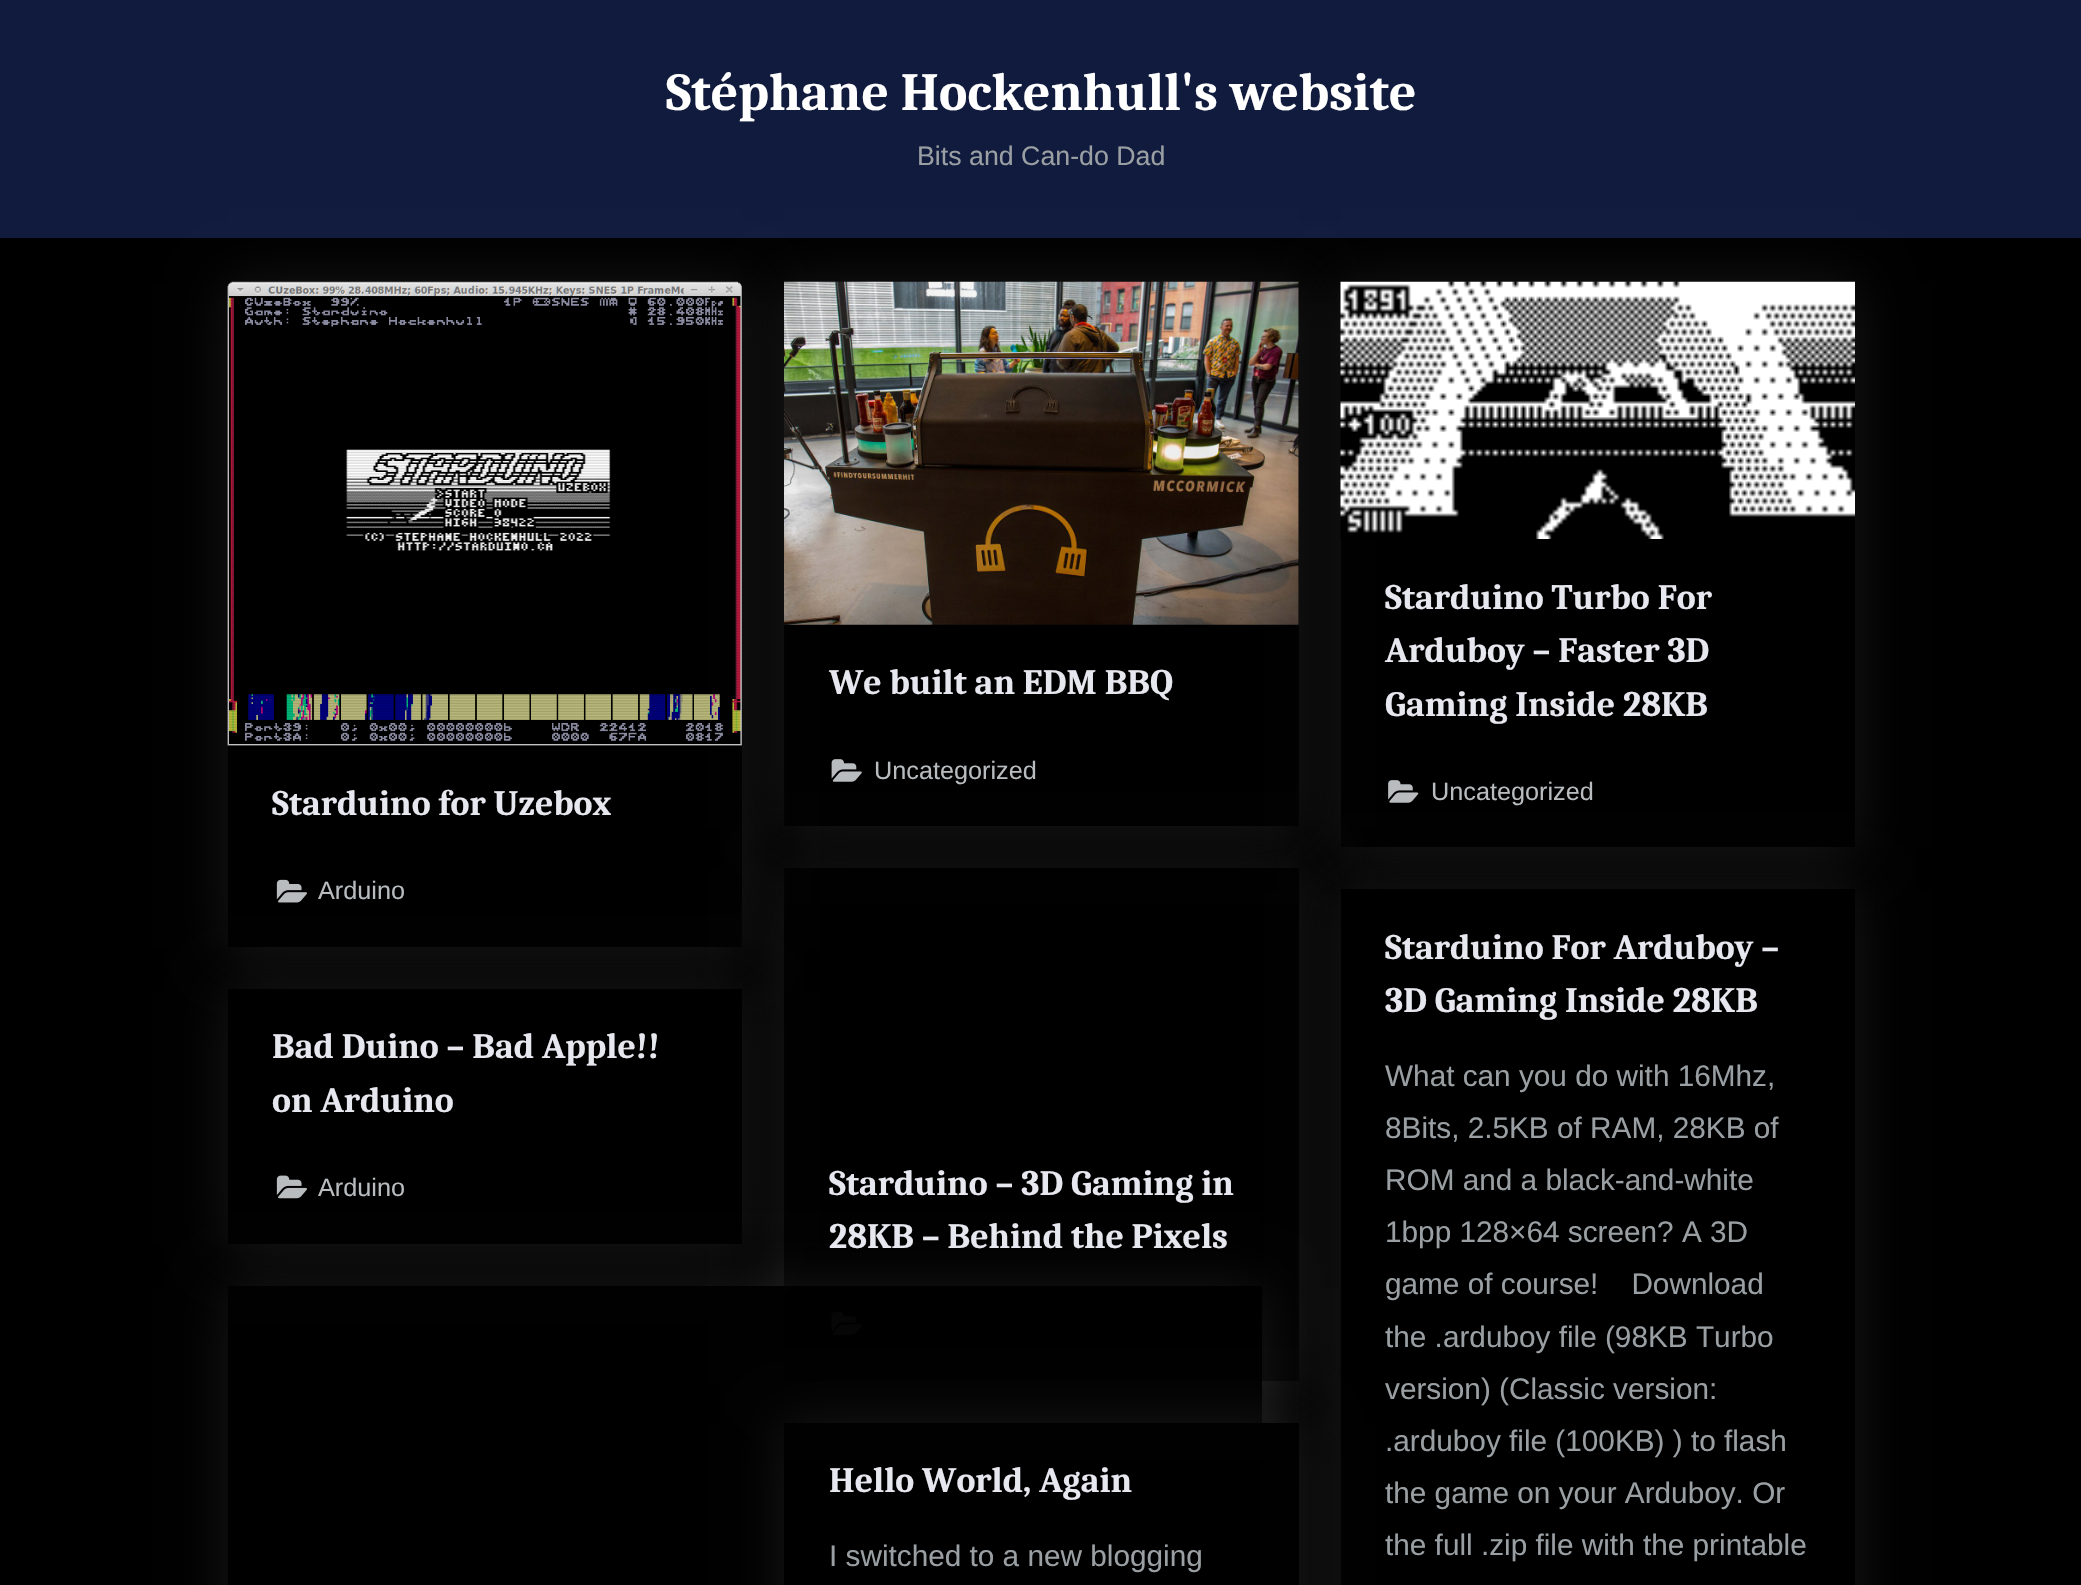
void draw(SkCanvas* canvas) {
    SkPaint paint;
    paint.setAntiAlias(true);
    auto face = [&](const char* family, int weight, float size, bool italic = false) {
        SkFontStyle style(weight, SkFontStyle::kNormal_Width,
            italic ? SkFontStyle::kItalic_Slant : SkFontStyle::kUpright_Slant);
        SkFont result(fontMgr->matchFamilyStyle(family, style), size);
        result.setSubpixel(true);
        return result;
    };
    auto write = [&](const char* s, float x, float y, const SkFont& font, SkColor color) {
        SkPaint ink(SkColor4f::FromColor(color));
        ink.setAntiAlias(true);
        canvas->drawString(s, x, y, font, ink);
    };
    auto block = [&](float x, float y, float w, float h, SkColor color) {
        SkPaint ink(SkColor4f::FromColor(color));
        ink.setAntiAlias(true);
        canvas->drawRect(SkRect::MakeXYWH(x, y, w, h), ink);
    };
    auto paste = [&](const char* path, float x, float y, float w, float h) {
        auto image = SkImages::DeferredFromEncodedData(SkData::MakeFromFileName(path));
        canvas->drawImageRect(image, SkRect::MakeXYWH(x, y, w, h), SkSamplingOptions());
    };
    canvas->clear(SK_ColorBLACK);
    block(0, 0, 2081, 238, SkColorSetRGB(17, 27, 61));
    auto kFont1 = face("Caladea", 700, 53.5f);
    write("Stéphane Hockenhull's website", 666, 110, kFont1, SK_ColorWHITE);
    auto kFont2 = face("Liberation Sans", 400, 26.75f);
    write("Bits and Can-do Dad", 917, 165, kFont2, SkColorSetRGB(153, 159, 163));
    canvas->save();
    canvas->clipPath(SkPathBuilder(SkPathFillType::kEvenOdd).moveTo(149, 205).lineTo(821, 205).lineTo(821, 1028).lineTo(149, 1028).close().moveTo(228, 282).lineTo(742, 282).lineTo(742, 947).lineTo(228, 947).close().detach(), true);
    paint.setColor(SkColorSetARGB(23, 255, 255, 255));
    paint.setMaskFilter(SkMaskFilter::MakeBlur(kNormal_SkBlurStyle, 26));
    canvas->drawRect(SkRect::MakeXYWH(228, 284, 514, 665), paint);
    paint.setMaskFilter(nullptr);
    canvas->restore();
    paste("pic5.png", 227, 281, 515, 465);
    canvas->save();
    canvas->clipPath(SkPathBuilder(SkPathFillType::kEvenOdd).moveTo(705, 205).lineTo(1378, 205).lineTo(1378, 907).lineTo(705, 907).close().moveTo(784, 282).lineTo(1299, 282).lineTo(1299, 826).lineTo(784, 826).close().detach(), true);
    paint.setMaskFilter(SkMaskFilter::MakeBlur(kNormal_SkBlurStyle, 26));
    canvas->drawRect(SkRect::MakeXYWH(784, 284, 515, 544), paint);
    paint.setMaskFilter(nullptr);
    canvas->restore();
    block(1298, 282, 1, 544, SkColorSetARGB(247, 0, 0, 0));
    paste("pic1.png", 784, 281, 515, 344);
    auto kFont3 = face("Caladea", 700, 35.75f);
    write("We built an EDM BBQ", 829, 694, kFont3, SkColorSetRGB(231, 231, 239));
    paste("pic2.png", 831, 759, 31, 23);
    auto kFont4 = face("Liberation Sans", 400, 25.25f);
    write("Uncategorized", 874, 779, kFont4, SkColorSetRGB(184, 188, 191));
    canvas->save();
    canvas->clipPath(SkPathBuilder(SkPathFillType::kEvenOdd).moveTo(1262, 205).lineTo(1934, 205).lineTo(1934, 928).lineTo(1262, 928).close().moveTo(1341, 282).lineTo(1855, 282).lineTo(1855, 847).lineTo(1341, 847).close().detach(), true);
    paint.setMaskFilter(SkMaskFilter::MakeBlur(kNormal_SkBlurStyle, 26));
    canvas->drawRect(SkRect::MakeXYWH(1341, 284, 514, 565), paint);
    paint.setMaskFilter(nullptr);
    canvas->restore();
    paste("pic3.png", 1340, 281, 515, 258);
    write("Starduino Turbo For", 1385, 609, kFont3, SkColorSetRGB(231, 231, 239));
    write("Arduboy – Faster 3D", 1385, 662, kFont3, SkColorSetRGB(231, 231, 239));
    write("Gaming Inside 28KB", 1385, 716, kFont3, SkColorSetRGB(231, 231, 239));
    paste("pic4.png", 1388, 780, 31, 23);
    write("Uncategorized", 1431, 800, kFont4, SkColorSetRGB(184, 188, 191));
    block(257, 946, 456, 1, SkColorSetARGB(247, 0, 0, 0));
    write("Starduino for Uzebox", 272, 815, kFont3, SkColorSetRGB(231, 231, 239));
    paste("pic6.png", 276, 879, 31, 24);
    write("Arduino", 318, 899, kFont4, SkColorSetRGB(184, 188, 191));
    canvas->save();
    canvas->clipPath(SkPathBuilder(SkPathFillType::kEvenOdd).moveTo(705, 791).lineTo(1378, 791).lineTo(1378, 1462).lineTo(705, 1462).close().moveTo(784, 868).lineTo(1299, 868).lineTo(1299, 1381).lineTo(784, 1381).close().detach(), true);
    paint.setMaskFilter(SkMaskFilter::MakeBlur(kNormal_SkBlurStyle, 26));
    canvas->drawRect(SkRect::MakeXYWH(784, 870, 515, 513), paint);
    paint.setMaskFilter(nullptr);
    canvas->restore();
    block(813, 868, 486, 513, SkColorSetARGB(247, 0, 0, 0));
    paint.setMaskFilter(SkMaskFilter::MakeBlur(kNormal_SkBlurStyle, 26));
    canvas->drawRect(SkRect::MakeXYWH(228, 991, 514, 255), paint);
    paint.setMaskFilter(nullptr);
    block(228, 989, 514, 255, SK_ColorBLACK);
    write("Bad Duino – Bad Apple!!", 272, 1058, kFont3, SkColorSetRGB(231, 231, 239));
    write("on Arduino", 272, 1112, kFont3, SkColorSetRGB(231, 231, 239));
    paste("pic7.png", 276, 1175, 31, 24);
    write("Arduino", 318, 1196, kFont4, SkColorSetRGB(184, 188, 191));
    paint.setMaskFilter(SkMaskFilter::MakeBlur(kNormal_SkBlurStyle, 26));
    canvas->drawRect(SkRect::MakeXYWH(1341, 891, 514, 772), paint);
    paint.setMaskFilter(nullptr);
    block(1341, 889, 514, 696, SK_ColorBLACK);
    write("Starduino For Arduboy –", 1385, 959, kFont3, SkColorSetRGB(231, 231, 239));
    write("3D Gaming Inside 28KB", 1385, 1012, kFont3, SkColorSetRGB(231, 231, 239));
    auto kFont5 = face("Liberation Sans", 400, 29.75f);
    write("What can you do with 16Mhz,", 1385, 1086, kFont5, SkColorSetRGB(153, 159, 163));
    write("8Bits, 2.5KB of RAM, 28KB of", 1385, 1138, kFont5, SkColorSetRGB(153, 159, 163));
    write("ROM and a black-and-white", 1385, 1190, kFont5, SkColorSetRGB(153, 159, 163));
    write("1bpp 128×64 screen? A 3D", 1385, 1242, kFont5, SkColorSetRGB(153, 159, 163));
    write("game of course!    Download", 1385, 1294, kFont5, SkColorSetRGB(153, 159, 163));
    write("the .arduboy file (98KB Turbo", 1385, 1347, kFont5, SkColorSetRGB(153, 159, 163));
    write("version) (Classic version:", 1385, 1399, kFont5, SkColorSetRGB(153, 159, 163));
    write(".arduboy file (100KB) ) to flash", 1385, 1451, kFont5, SkColorSetRGB(153, 159, 163));
    write("the game on your Arduboy. Or", 1385, 1503, kFont5, SkColorSetRGB(153, 159, 163));
    write("the full .zip file with the printable", 1385, 1555, kFont5, SkColorSetRGB(153, 159, 163));
    write("Starduino – 3D Gaming in", 829, 1195, kFont3, SkColorSetRGB(231, 231, 239));
    write("28KB – Behind the Pixels", 829, 1248, kFont3, SkColorSetRGB(231, 231, 239));
    paste("pic2.png", 831, 1312, 31, 23);
    canvas->save();
    canvas->clipPath(SkPathBuilder(SkPathFillType::kEvenOdd).moveTo(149, 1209).lineTo(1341, 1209).lineTo(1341, 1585).lineTo(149, 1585).close().moveTo(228, 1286).lineTo(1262, 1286).lineTo(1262, 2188).lineTo(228, 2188).close().detach(), true);
    paint.setMaskFilter(SkMaskFilter::MakeBlur(kNormal_SkBlurStyle, 26));
    canvas->drawRect(SkRect::MakeXYWH(228, 1288, 1034, 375), paint);
    paint.setMaskFilter(nullptr);
    canvas->restore();
    block(238, 1286, 1024, 299, SkColorSetARGB(247, 0, 0, 0));
    canvas->save();
    canvas->clipPath(SkPathBuilder(SkPathFillType::kEvenOdd).moveTo(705, 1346).lineTo(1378, 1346).lineTo(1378, 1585).lineTo(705, 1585).close().moveTo(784, 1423).lineTo(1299, 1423).lineTo(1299, 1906).lineTo(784, 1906).close().detach(), true);
    paint.setMaskFilter(SkMaskFilter::MakeBlur(kNormal_SkBlurStyle, 26));
    canvas->drawRect(SkRect::MakeXYWH(784, 1425, 515, 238), paint);
    paint.setMaskFilter(nullptr);
    canvas->restore();
    block(1262, 1423, 37, 162, SkColorSetARGB(247, 0, 0, 0));
    write("Hello World, Again", 829, 1492, kFont3, SkColorSetRGB(231, 231, 239));
    write("I switched to a new blogging", 829, 1566, kFont5, SkColorSetRGB(153, 159, 163));
}
